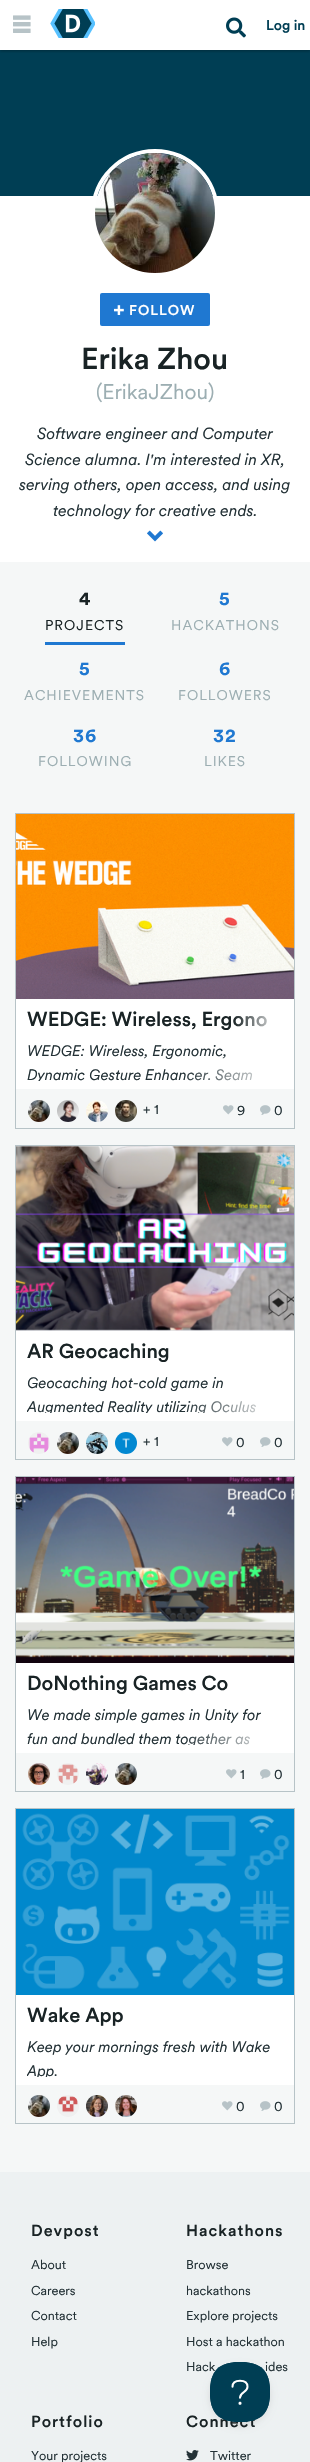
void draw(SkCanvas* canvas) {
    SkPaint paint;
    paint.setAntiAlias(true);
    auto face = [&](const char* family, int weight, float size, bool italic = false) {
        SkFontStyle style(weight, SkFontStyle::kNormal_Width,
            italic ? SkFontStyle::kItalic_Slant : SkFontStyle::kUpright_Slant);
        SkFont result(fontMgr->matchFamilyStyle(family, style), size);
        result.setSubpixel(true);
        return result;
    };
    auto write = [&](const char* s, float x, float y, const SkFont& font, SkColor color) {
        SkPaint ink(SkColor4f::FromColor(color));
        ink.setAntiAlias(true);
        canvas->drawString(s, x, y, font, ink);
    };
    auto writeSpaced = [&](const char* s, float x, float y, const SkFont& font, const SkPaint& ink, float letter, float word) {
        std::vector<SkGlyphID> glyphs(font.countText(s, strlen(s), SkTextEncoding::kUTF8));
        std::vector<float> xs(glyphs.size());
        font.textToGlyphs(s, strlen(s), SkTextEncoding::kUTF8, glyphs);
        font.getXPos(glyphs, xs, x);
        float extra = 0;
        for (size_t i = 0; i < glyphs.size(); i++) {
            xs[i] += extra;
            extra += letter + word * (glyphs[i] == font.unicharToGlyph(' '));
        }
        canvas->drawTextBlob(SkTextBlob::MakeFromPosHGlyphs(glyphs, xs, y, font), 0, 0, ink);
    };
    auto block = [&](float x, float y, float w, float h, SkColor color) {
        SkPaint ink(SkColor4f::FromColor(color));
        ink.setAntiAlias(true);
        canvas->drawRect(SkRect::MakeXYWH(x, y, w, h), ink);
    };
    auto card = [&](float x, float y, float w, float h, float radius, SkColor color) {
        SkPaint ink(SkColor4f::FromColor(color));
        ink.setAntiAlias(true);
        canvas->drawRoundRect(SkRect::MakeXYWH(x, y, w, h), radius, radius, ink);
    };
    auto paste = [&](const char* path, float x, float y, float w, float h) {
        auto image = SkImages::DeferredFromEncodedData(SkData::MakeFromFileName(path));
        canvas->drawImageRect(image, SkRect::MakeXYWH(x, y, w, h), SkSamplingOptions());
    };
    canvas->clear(SK_ColorWHITE);
    block(0, 50, 310, 146, SkColorSetRGB(0, 62, 84));
    canvas->save();
    canvas->clipRect(SkRect::MakeXYWH(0, 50, 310, 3));
    paint.setColor(SkColorSetARGB(77, 0, 0, 0));
    paint.setMaskFilter(SkMaskFilter::MakeBlur(kNormal_SkBlurStyle, 1.5f));
    canvas->drawRect(SkRect::MakeXYWH(0, 1, 310, 50), paint);
    paint.setMaskFilter(nullptr);
    canvas->restore();
    paste("pic1.png", 13, 15, 18, 18);
    paste("pic2.png", 50, 9, 45, 29);
    paste("pic3.png", 226, 17, 20, 21);
    auto kFont1 = face("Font", 500, 14);
    write("Log in", 266, 30, kFont1, SkColorSetRGB(0, 62, 84));
    paint.setStyle(SkPaint::kStroke_Style);
    paint.setStrokeWidth(4);
    paint.setColor(SK_ColorWHITE);
    canvas->drawCircle(155, 213, 62, paint);
    paste("pic4.png", 95, 153, 120, 120);
    card(100, 293, 110, 33, 2, SkColorSetRGB(31, 120, 209));
    paste("pic5.png", 114, 305, 10, 10);
    paint.setStyle(SkPaint::kFill_Style);
    writeSpaced("FOLLOW", 129, 315, kFont1, paint, 1, 0);
    auto kFont2 = face("Font", 500, 30);
    write("Erika Zhou", 81, 369, kFont2, SkColorSetRGB(25, 35, 37));
    auto kFont3 = face("Font", 400, 21);
    write("(ErikaJZhou)", 96, 399, kFont3, SkColorSetRGB(156, 174, 178));
    auto kFont4 = face("Font", 400, 16, true);
    write("Software engineer and Computer", 37, 439, kFont4, SkColorSetRGB(35, 49, 54));
    write("Science alumna. I'm interested in XR,", 25, 465, kFont4, SkColorSetRGB(35, 49, 54));
    write("serving others, open access, and using", 19, 490, kFont4, SkColorSetRGB(35, 49, 54));
    write("technology for creative ends.", 53, 516, kFont4, SkColorSetRGB(35, 49, 54));
    paste("pic6.png", 147, 530, 16, 12);
    block(0, 562, 310, 1610, SkColorSetRGB(245, 247, 247));
    block(45, 642, 80, 3, SkColorSetRGB(31, 120, 209));
    auto kFont5 = face("Font", 700, 19);
    paint.setColor(SkColorSetRGB(25, 35, 37));
    writeSpaced("4", 79, 605, kFont5, paint, 1, 0);
    auto kFont6 = face("Font", 400, 14);
    writeSpaced("PROJECTS", 45, 630, kFont6, paint, 1, 0);
    paint.setColor(SkColorSetRGB(31, 120, 209));
    writeSpaced("5", 219, 605, kFont5, paint, 1, 0);
    paint.setColor(SkColorSetRGB(156, 174, 178));
    writeSpaced("HACKATHONS", 171, 630, kFont6, paint, 1, 0);
    paint.setColor(SkColorSetRGB(31, 120, 209));
    writeSpaced("5", 79, 675, kFont5, paint, 1, 0);
    paint.setColor(SkColorSetRGB(156, 174, 178));
    writeSpaced("ACHIEVEMENTS", 24, 700, kFont6, paint, 1, 0);
    paint.setColor(SkColorSetRGB(31, 120, 209));
    writeSpaced("6", 219, 675, kFont5, paint, 1, 0);
    paint.setColor(SkColorSetRGB(156, 174, 178));
    writeSpaced("FOLLOWERS", 178, 700, kFont6, paint, 1, 0);
    paint.setColor(SkColorSetRGB(31, 120, 209));
    writeSpaced("36", 73, 742, kFont5, paint, 1, 0);
    paint.setColor(SkColorSetRGB(156, 174, 178));
    writeSpaced("FOLLOWING", 38, 766, kFont6, paint, 1, 0);
    paint.setColor(SkColorSetRGB(31, 120, 209));
    writeSpaced("32", 213, 742, kFont5, paint, 1, 0);
    paint.setColor(SkColorSetRGB(156, 174, 178));
    writeSpaced("LIKES", 204, 766, kFont6, paint, 1, 0);
    block(16, 999, 278, 90, SK_ColorWHITE);
    paint.setStyle(SkPaint::kStroke_Style);
    paint.setStrokeWidth(1);
    paint.setColor(SkColorSetRGB(183, 195, 199));
    canvas->drawRect(SkRect::MakeXYWH(15.5f, 813.5f, 279, 315), paint);
    paste("pic7.png", 16, 814, 278, 185);
    auto kFont7 = face("Font", 500, 20);
    write("WEDGE: Wireless, Ergono", 27, 1026, kFont7, SkColorSetRGB(25, 35, 37));
    paint.setStyle(SkPaint::kFill_Style);
    {
        const SkColor colors[] = {SkColorSetARGB(0, 255, 255, 255), SK_ColorWHITE};
        const float stops[] = {0, 1};
        const SkPoint ends[] = {{233, 1021}, {283, 1021}};
        paint.setShader(SkGradientShader::MakeLinear(ends, colors, stops, 2, SkTileMode::kClamp));
        paint.setAlpha(255);
    }
    canvas->drawRect(SkRect::MakeXYWH(234, 1016, 33, 11), paint);
    auto kFont8 = face("Font", 400, 15, true);
    write("WEDGE: Wireless, Ergonomic,", 27, 1056, kFont8, SkColorSetRGB(35, 49, 54));
    canvas->save();
    canvas->clipRect(SkRect::MakeXYWH(27, 1039, 256, 42));
    write("Dynamic Gesture Enhancer. Seam", 27, 1080, kFont8, SkColorSetRGB(35, 49, 54));
    canvas->restore();
    {
        const SkColor colors[] = {SkColorSetARGB(0, 255, 255, 255), SK_ColorWHITE};
        const float stops[] = {0, 1};
        const SkPoint ends[] = {{183, 1071}, {283, 1071}};
        paint.setShader(SkGradientShader::MakeLinear(ends, colors, stops, 2, SkTileMode::kClamp));
        paint.setAlpha(255);
    }
    canvas->drawRect(SkRect::MakeXYWH(185, 1069, 68, 12), paint);
    paste("pic8.png", 28, 1100, 22, 22);
    paste("pic9.png", 57, 1100, 22, 22);
    paste("pic10.png", 86, 1100, 22, 22);
    paste("pic11.png", 115, 1100, 22, 22);
    write("+ 1", 143, 1114, kFont6, SkColorSetRGB(35, 49, 54));
    paste("pic12.png", 223, 1105, 11, 10);
    write("9", 237, 1115, kFont6, SkColorSetRGB(35, 49, 54));
    paste("pic13.png", 260, 1105, 11, 10);
    write("0", 274, 1115, kFont6, SkColorSetRGB(35, 49, 54));
    block(16, 1331, 278, 90, SK_ColorWHITE);
    paint.setStyle(SkPaint::kStroke_Style);
    paint.setShader(nullptr);
    paint.setColor(SkColorSetRGB(183, 195, 199));
    canvas->drawRect(SkRect::MakeXYWH(15.5f, 1145.5f, 279, 314), paint);
    paste("pic14.png", 16, 1146, 278, 185);
    write("AR Geocaching", 27, 1358, kFont7, SkColorSetRGB(25, 35, 37));
    write("Geocaching hot-cold game in", 27, 1388, kFont8, SkColorSetRGB(35, 49, 54));
    canvas->save();
    canvas->clipRect(SkRect::MakeXYWH(27, 1371, 256, 42));
    write("Augmented Reality utilizing Oculus", 27, 1412, kFont8, SkColorSetRGB(35, 49, 54));
    canvas->restore();
    paint.setStyle(SkPaint::kFill_Style);
    {
        const SkColor colors[] = {SkColorSetARGB(0, 255, 255, 255), SK_ColorWHITE};
        const float stops[] = {0, 1};
        const SkPoint ends[] = {{183, 1403}, {283, 1403}};
        paint.setShader(SkGradientShader::MakeLinear(ends, colors, stops, 2, SkTileMode::kClamp));
        paint.setAlpha(255);
    }
    canvas->drawRect(SkRect::MakeXYWH(185, 1401, 72, 12), paint);
    paste("pic15.png", 28, 1432, 22, 22);
    paste("pic16.png", 57, 1432, 22, 22);
    paste("pic17.png", 86, 1432, 22, 22);
    paste("pic18.png", 115, 1432, 22, 22);
    write("+ 1", 143, 1446, kFont6, SkColorSetRGB(35, 49, 54));
    paste("pic12.png", 222, 1437, 11, 10);
    write("0", 236, 1447, kFont6, SkColorSetRGB(35, 49, 54));
    paste("pic13.png", 260, 1437, 11, 10);
    write("0", 274, 1447, kFont6, SkColorSetRGB(35, 49, 54));
    block(16, 1663, 278, 90, SK_ColorWHITE);
    paint.setStyle(SkPaint::kStroke_Style);
    paint.setShader(nullptr);
    paint.setColor(SkColorSetRGB(183, 195, 199));
    canvas->drawRect(SkRect::MakeXYWH(15.5f, 1476.5f, 279, 315), paint);
    paste("pic19.png", 16, 1477, 278, 186);
    write("DoNothing Games Co", 27, 1690, kFont7, SkColorSetRGB(25, 35, 37));
    write("We made simple games in Unity for", 27, 1720, kFont8, SkColorSetRGB(35, 49, 54));
    canvas->save();
    canvas->clipRect(SkRect::MakeXYWH(27, 1703, 256, 42));
    write("fun and bundled them together as", 27, 1744, kFont8, SkColorSetRGB(35, 49, 54));
    canvas->restore();
    paint.setStyle(SkPaint::kFill_Style);
    {
        const SkColor colors[] = {SkColorSetARGB(0, 255, 255, 255), SK_ColorWHITE};
        const float stops[] = {0, 1};
        const SkPoint ends[] = {{183, 1735}, {283, 1735}};
        paint.setShader(SkGradientShader::MakeLinear(ends, colors, stops, 2, SkTileMode::kClamp));
        paint.setAlpha(255);
    }
    canvas->drawRect(SkRect::MakeXYWH(185, 1733, 65, 12), paint);
    paste("pic20.png", 28, 1763, 22, 22);
    paste("pic21.png", 57, 1763, 22, 22);
    paste("pic22.png", 86, 1763, 22, 22);
    paste("pic23.png", 115, 1763, 22, 22);
    paste("pic12.png", 226, 1769, 11, 10);
    write("1", 240, 1779, kFont6, SkColorSetRGB(35, 49, 54));
    paste("pic13.png", 260, 1769, 11, 10);
    write("0", 274, 1779, kFont6, SkColorSetRGB(35, 49, 54));
    block(16, 1995, 278, 90, SK_ColorWHITE);
    paint.setStyle(SkPaint::kStroke_Style);
    paint.setShader(nullptr);
    paint.setColor(SkColorSetRGB(183, 195, 199));
    canvas->drawRect(SkRect::MakeXYWH(15.5f, 1808.5f, 279, 315), paint);
    paste("pic24.png", 16, 1809, 278, 186);
    write("Wake App", 27, 2022, kFont7, SkColorSetRGB(25, 35, 37));
    write("Keep your mornings fresh with Wake", 27, 2052, kFont8, SkColorSetRGB(35, 49, 54));
    canvas->save();
    canvas->clipRect(SkRect::MakeXYWH(27, 2035, 256, 42));
    write("App.", 27, 2076, kFont8, SkColorSetRGB(35, 49, 54));
    canvas->restore();
    paste("pic8.png", 28, 2095, 22, 22);
    paste("pic25.png", 57, 2095, 22, 22);
    paste("pic26.png", 86, 2095, 22, 22);
    paste("pic27.png", 115, 2095, 22, 22);
    paste("pic12.png", 222, 2101, 11, 10);
    write("0", 236, 2111, kFont6, SkColorSetRGB(35, 49, 54));
    paste("pic13.png", 260, 2101, 11, 10);
    write("0", 274, 2111, kFont6, SkColorSetRGB(35, 49, 54));
    block(0, 2172, 310, 290, SkColorSetRGB(237, 241, 242));
    auto kFont9 = face("Font", 500, 16);
    paint.setStyle(SkPaint::kFill_Style);
    paint.setColor(SkColorSetRGB(25, 35, 37));
    writeSpaced("Devpost", 31, 2236, kFont9, paint, 1, 0);
    auto kFont10 = face("Font", 400, 12.75f);
    write("About", 31, 2269, kFont10, SkColorSetRGB(35, 49, 54));
    write("Careers", 31, 2295, kFont10, SkColorSetRGB(35, 49, 54));
    write("Contact", 31, 2320, kFont10, SkColorSetRGB(35, 49, 54));
    write("Help", 31, 2346, kFont10, SkColorSetRGB(35, 49, 54));
    writeSpaced("Hackathons", 186, 2236, kFont9, paint, 1, 0);
    write("Browse", 186, 2269, kFont10, SkColorSetRGB(35, 49, 54));
    write("hackathons", 186, 2295, kFont10, SkColorSetRGB(35, 49, 54));
    write("Explore projects", 186, 2320, kFont10, SkColorSetRGB(35, 49, 54));
    write("Host a hackathon", 186, 2346, kFont10, SkColorSetRGB(35, 49, 54));
    write("Hack", 186, 2371, kFont10, SkColorSetRGB(35, 49, 54));
    write("ides", 265, 2371, kFont10, SkColorSetRGB(35, 49, 54));
    writeSpaced("Portfolio", 31, 2427, kFont9, paint, 1, 0);
    write("Your projects", 31, 2460, kFont10, SkColorSetRGB(35, 49, 54));
    writeSpaced("Connect", 186, 2427, kFont9, paint, 1, 0);
    paste("pic28.png", 186, 2450, 13, 11);
    write("Twitter", 210, 2460, kFont10, SkColorSetRGB(35, 49, 54));
    paint.setColor(SkColorSetARGB(26, 0, 0, 0));
    paint.setMaskFilter(SkMaskFilter::MakeBlur(kNormal_SkBlurStyle, 3.5f));
    canvas->drawRoundRect(SkRect::MakeXYWH(210, 2366, 60, 60), 30, 30, paint);
    paint.setMaskFilter(nullptr);
    paste("pic29.png", 210, 2362, 60, 60);
}
